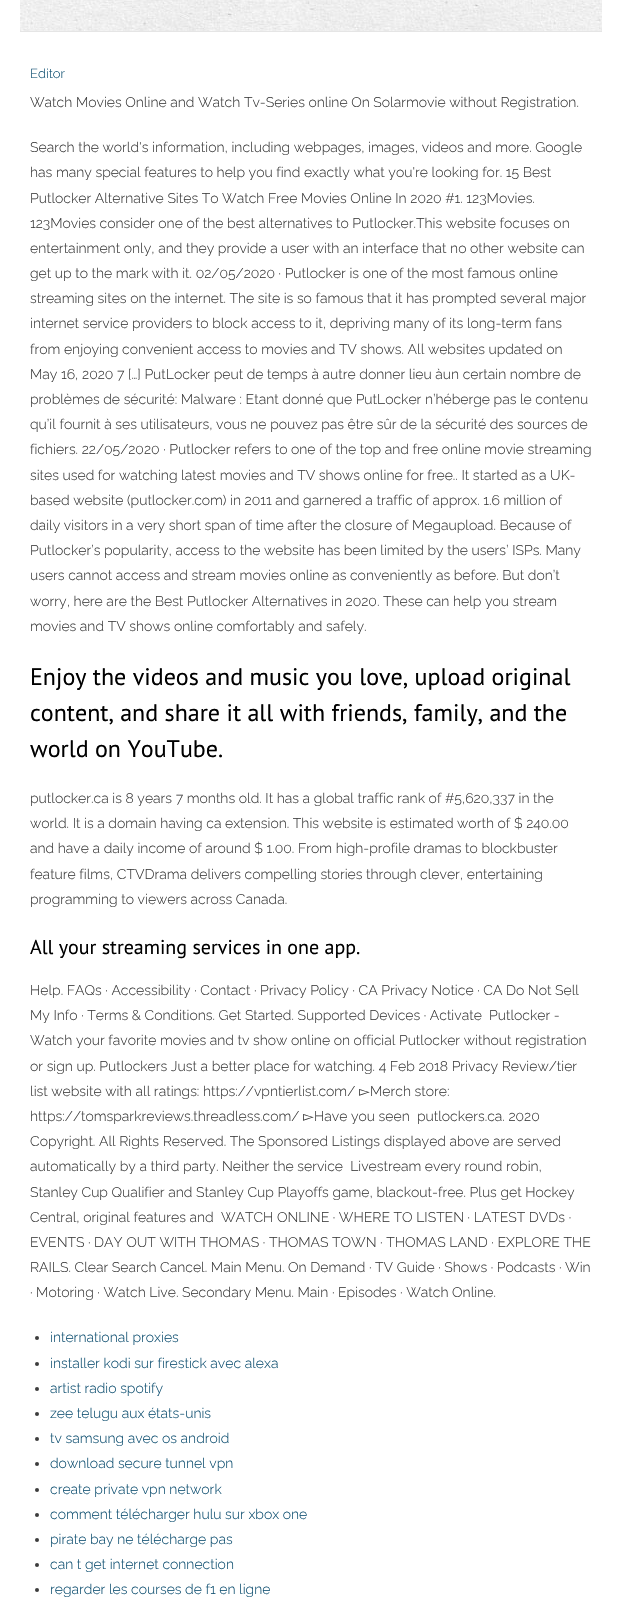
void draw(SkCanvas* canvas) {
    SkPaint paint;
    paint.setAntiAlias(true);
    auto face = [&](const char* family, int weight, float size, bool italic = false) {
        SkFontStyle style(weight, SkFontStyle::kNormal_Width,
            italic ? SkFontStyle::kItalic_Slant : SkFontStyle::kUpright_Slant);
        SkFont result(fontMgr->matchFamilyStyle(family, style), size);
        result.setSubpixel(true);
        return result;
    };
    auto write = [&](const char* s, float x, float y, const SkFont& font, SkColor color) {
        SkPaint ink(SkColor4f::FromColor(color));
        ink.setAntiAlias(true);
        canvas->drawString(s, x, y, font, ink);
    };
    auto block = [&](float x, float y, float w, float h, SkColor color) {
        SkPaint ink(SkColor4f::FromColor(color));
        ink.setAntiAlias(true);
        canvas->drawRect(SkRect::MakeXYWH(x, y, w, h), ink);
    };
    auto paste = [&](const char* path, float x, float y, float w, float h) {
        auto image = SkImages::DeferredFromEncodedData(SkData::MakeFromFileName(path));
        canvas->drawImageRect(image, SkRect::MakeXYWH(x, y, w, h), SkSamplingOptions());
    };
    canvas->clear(SK_ColorWHITE);
    paste("pic1.png", 20, 0, 582, 31);
    block(20, 31, 582, 1, SkColorSetRGB(229, 229, 229));
    auto kFont1 = face("Raleway", 300, 13);
    write("Editor", 30, 78, kFont1, SkColorSetRGB(17, 81, 114));
    auto kFont2 = face("Raleway", 300, 14);
    write("Watch Movies Online and Watch Tv-Series online On Solarmovie without Registration.", 30, 107, kFont2, SkColorSetRGB(61, 61, 61));
    write("Search the world's information, including webpages, images, videos and more. Google", 30, 152, kFont2, SkColorSetRGB(61, 61, 61));
    write("has many special features to help you find exactly what you're looking for. 15 Best", 30, 177, kFont2, SkColorSetRGB(61, 61, 61));
    write("Putlocker Alternative Sites To Watch Free Movies Online In 2020 #1. 123Movies.", 30, 203, kFont2, SkColorSetRGB(61, 61, 61));
    write("123Movies consider one of the best alternatives to Putlocker.This website focuses on", 30, 228, kFont2, SkColorSetRGB(61, 61, 61));
    write("entertainment only, and they provide a user with an interface that no other website can", 30, 253, kFont2, SkColorSetRGB(61, 61, 61));
    write("get up to the mark with it. 02/05/2020 · Putlocker is one of the most famous online", 30, 278, kFont2, SkColorSetRGB(61, 61, 61));
    write("streaming sites on the internet. The site is so famous that it has prompted several major", 30, 303, kFont2, SkColorSetRGB(61, 61, 61));
    write("internet service providers to block access to it, depriving many of its long-term fans", 30, 328, kFont2, SkColorSetRGB(61, 61, 61));
    write("from enjoying convenient access to movies and TV shows. All websites updated on", 30, 354, kFont2, SkColorSetRGB(61, 61, 61));
    write("May 16, 2020 7 […] PutLocker peut de temps à autre donner lieu àun certain nombre de", 30, 379, kFont2, SkColorSetRGB(61, 61, 61));
    write("problèmes de sécurité: Malware : Etant donné que PutLocker n’héberge pas le contenu", 30, 404, kFont2, SkColorSetRGB(61, 61, 61));
    write("qu’il fournit à ses utilisateurs, vous ne pouvez pas être sûr de la sécurité des sources de", 30, 429, kFont2, SkColorSetRGB(61, 61, 61));
    write("fichiers. 22/05/2020 · Putlocker refers to one of the top and free online movie streaming", 30, 454, kFont2, SkColorSetRGB(61, 61, 61));
    write("sites used for watching latest movies and TV shows online for free.. It started as a UK-", 30, 480, kFont2, SkColorSetRGB(61, 61, 61));
    write("based website (putlocker.com) in 2011 and garnered a traffic of approx. 1.6 million of", 30, 505, kFont2, SkColorSetRGB(61, 61, 61));
    write("daily visitors in a very short span of time after the closure of Megaupload. Because of", 30, 530, kFont2, SkColorSetRGB(61, 61, 61));
    write("Putlocker’s popularity, access to the website has been limited by the users’ ISPs. Many", 30, 555, kFont2, SkColorSetRGB(61, 61, 61));
    write("users cannot access and stream movies online as conveniently as before. But don’t", 30, 580, kFont2, SkColorSetRGB(61, 61, 61));
    write("worry, here are the Best Putlocker Alternatives in 2020. These can help you stream", 30, 606, kFont2, SkColorSetRGB(61, 61, 61));
    write("movies and TV shows online comfortably and safely.", 30, 631, kFont2, SkColorSetRGB(61, 61, 61));
    auto kFont3 = face("PT Sans", 400, 24);
    write("Enjoy the videos and music you love, upload original", 30, 685, kFont3, SK_ColorBLACK);
    write("content, and share it all with friends, family, and the", 30, 721, kFont3, SK_ColorBLACK);
    write("world on YouTube.", 30, 757, kFont3, SK_ColorBLACK);
    write("putlocker.ca is 8 years 7 months old. It has a global traffic rank of #5,620,337 in the", 30, 803, kFont2, SkColorSetRGB(61, 61, 61));
    write("world. It is a domain having ca extension. This website is estimated worth of $ 240.00", 30, 828, kFont2, SkColorSetRGB(61, 61, 61));
    write("and have a daily income of around $ 1.00. From high-profile dramas to blockbuster", 30, 853, kFont2, SkColorSetRGB(61, 61, 61));
    write("feature films, CTVDrama delivers compelling stories through clever, entertaining", 30, 879, kFont2, SkColorSetRGB(61, 61, 61));
    write("programming to viewers across Canada.", 30, 904, kFont2, SkColorSetRGB(61, 61, 61));
    auto kFont4 = face("PT Sans", 400, 20);
    write("All your streaming services in one app.", 30, 954, kFont4, SK_ColorBLACK);
    write("Help. FAQs · Accessibility · Contact · Privacy Policy · CA Privacy Notice · CA Do Not Sell", 30, 995, kFont2, SkColorSetRGB(61, 61, 61));
    write("My Info · Terms & Conditions. Get Started. Supported Devices · Activate  Putlocker -", 30, 1020, kFont2, SkColorSetRGB(61, 61, 61));
    write("Watch your favorite movies and tv show online on official Putlocker without registration", 30, 1045, kFont2, SkColorSetRGB(61, 61, 61));
    write("or sign up. Putlockers Just a better place for watching. 4 Feb 2018 Privacy Review/tier", 30, 1071, kFont2, SkColorSetRGB(61, 61, 61));
    write("list website with all ratings: https://vpntierlist.com/", 30, 1096, kFont2, SkColorSetRGB(61, 61, 61));
    auto kFont5 = face("DejaVu Sans", 400, 14);
    write("▻", 359, 1096, kFont5, SkColorSetRGB(61, 61, 61));
    write("Merch store:", 370, 1096, kFont2, SkColorSetRGB(61, 61, 61));
    write("https://tomsparkreviews.threadless.com/", 30, 1121, kFont2, SkColorSetRGB(61, 61, 61));
    write("▻", 303, 1121, kFont5, SkColorSetRGB(61, 61, 61));
    write("Have you seen  putlockers.ca. 2020", 314, 1121, kFont2, SkColorSetRGB(61, 61, 61));
    write("Copyright. All Rights Reserved. The Sponsored Listings displayed above are served", 30, 1146, kFont2, SkColorSetRGB(61, 61, 61));
    write("automatically by a third party. Neither the service  Livestream every round robin,", 30, 1171, kFont2, SkColorSetRGB(61, 61, 61));
    write("Stanley Cup Qualifier and Stanley Cup Playoffs game, blackout-free. Plus get Hockey", 30, 1197, kFont2, SkColorSetRGB(61, 61, 61));
    write("Central, original features and  WATCH ONLINE · WHERE TO LISTEN · LATEST DVDs ·", 30, 1222, kFont2, SkColorSetRGB(61, 61, 61));
    write("EVENTS · DAY OUT WITH THOMAS · THOMAS TOWN · THOMAS LAND · EXPLORE THE", 30, 1247, kFont2, SkColorSetRGB(61, 61, 61));
    write("RAILS. Clear Search Cancel. Main Menu. On Demand · TV Guide · Shows · Podcasts · Win", 30, 1272, kFont2, SkColorSetRGB(61, 61, 61));
    write("· Motoring · Watch Live. Secondary Menu. Main · Episodes · Watch Online.", 30, 1297, kFont2, SkColorSetRGB(61, 61, 61));
    paint.setColor(SkColorSetRGB(61, 61, 61));
    canvas->drawCircle(37, 1338, 2, paint);
    write("international proxies", 50, 1342, kFont2, SkColorSetRGB(17, 81, 114));
    canvas->drawCircle(37, 1364, 2, paint);
    write("installer kodi sur firestick avec alexa", 50, 1368, kFont2, SkColorSetRGB(17, 81, 114));
    canvas->drawCircle(37, 1389, 2, paint);
    write("artist radio spotify", 50, 1393, kFont2, SkColorSetRGB(17, 81, 114));
    canvas->drawCircle(37, 1414, 2, paint);
    write("zee telugu aux états-unis", 50, 1418, kFont2, SkColorSetRGB(17, 81, 114));
    canvas->drawCircle(37, 1439, 2, paint);
    write("tv samsung avec os android", 50, 1443, kFont2, SkColorSetRGB(17, 81, 114));
    canvas->drawCircle(37, 1464, 2, paint);
    write("download secure tunnel vpn", 50, 1468, kFont2, SkColorSetRGB(17, 81, 114));
    canvas->drawCircle(37, 1490, 2, paint);
    write("create private vpn network", 50, 1494, kFont2, SkColorSetRGB(17, 81, 114));
    canvas->drawCircle(37, 1515, 2, paint);
    write("comment télécharger hulu sur xbox one", 50, 1519, kFont2, SkColorSetRGB(17, 81, 114));
    canvas->drawCircle(37, 1540, 2, paint);
    write("pirate bay ne télécharge pas", 50, 1544, kFont2, SkColorSetRGB(17, 81, 114));
    canvas->drawCircle(37, 1565, 2, paint);
    write("can t get internet connection", 50, 1569, kFont2, SkColorSetRGB(17, 81, 114));
    canvas->drawCircle(37, 1590, 2, paint);
    write("regarder les courses de f1 en ligne", 50, 1594, kFont2, SkColorSetRGB(17, 81, 114));
}
